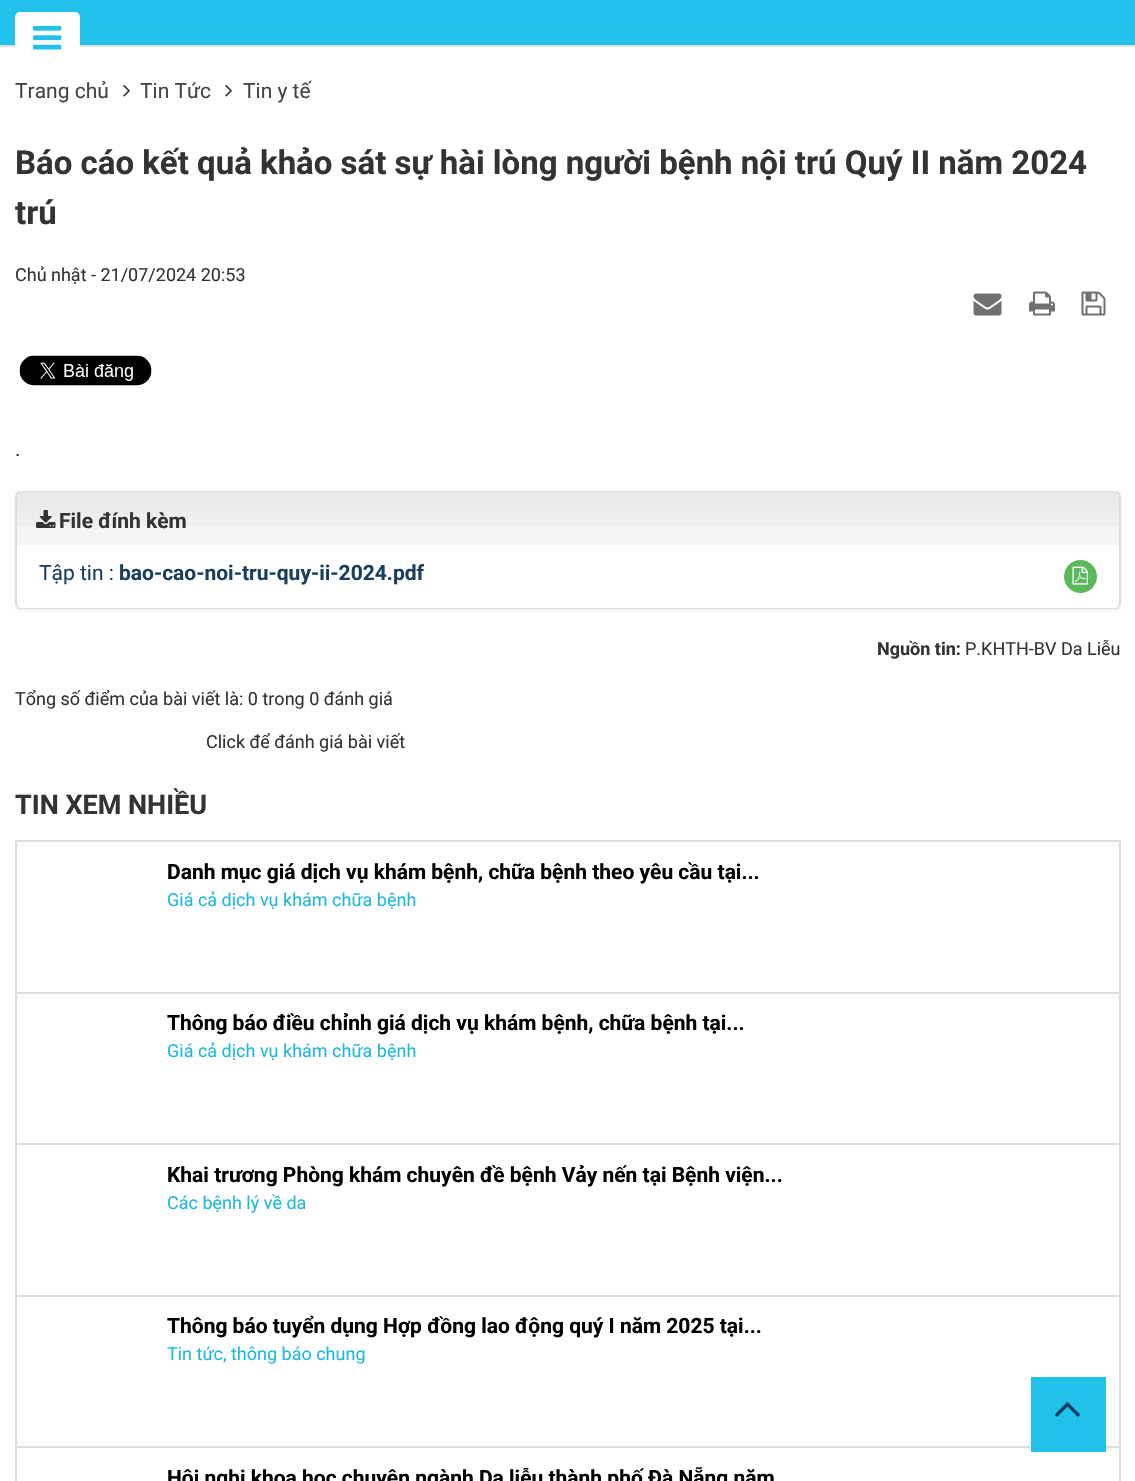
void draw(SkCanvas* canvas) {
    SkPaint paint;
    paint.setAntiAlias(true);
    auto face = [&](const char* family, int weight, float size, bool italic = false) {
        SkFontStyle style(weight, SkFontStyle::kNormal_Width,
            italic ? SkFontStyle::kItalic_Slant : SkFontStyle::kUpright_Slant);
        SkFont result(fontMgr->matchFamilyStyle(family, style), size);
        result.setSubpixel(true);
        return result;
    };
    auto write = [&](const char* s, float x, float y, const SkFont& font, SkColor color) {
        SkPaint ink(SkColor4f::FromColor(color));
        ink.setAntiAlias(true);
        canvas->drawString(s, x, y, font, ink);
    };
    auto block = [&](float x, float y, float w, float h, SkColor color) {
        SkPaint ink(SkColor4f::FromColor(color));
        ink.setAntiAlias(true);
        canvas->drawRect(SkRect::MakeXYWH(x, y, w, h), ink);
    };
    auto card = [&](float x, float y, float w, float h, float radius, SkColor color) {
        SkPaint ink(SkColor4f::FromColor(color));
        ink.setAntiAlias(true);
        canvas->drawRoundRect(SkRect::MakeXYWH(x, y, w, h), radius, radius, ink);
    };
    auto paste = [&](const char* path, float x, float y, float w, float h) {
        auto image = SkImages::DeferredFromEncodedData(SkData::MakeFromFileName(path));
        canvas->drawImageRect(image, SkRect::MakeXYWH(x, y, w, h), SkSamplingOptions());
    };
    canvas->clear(SK_ColorWHITE);
    block(0, 0, 1135, 45, SkColorSetRGB(34, 193, 233));
    block(0, 45, 1135, 2, SkColorSetRGB(221, 221, 221));
    card(15, 12, 65, 51, 5, SK_ColorWHITE);
    paste("pic1.png", 33, 25, 29, 25);
    auto kFont1 = face("Roboto", 400, 21);
    write("Trang chủ", 15, 98, kFont1, SkColorSetRGB(68, 68, 68));
    paste("pic2.png", 123, 85, 7, 12);
    write("Tin Tức", 140, 98, kFont1, SkColorSetRGB(68, 68, 68));
    paste("pic2.png", 225, 85, 7, 12);
    write("Tin y tế", 243, 98, kFont1, SkColorSetRGB(68, 68, 68));
    auto kFont2 = face("Roboto", 700, 33);
    write("Báo cáo kết quả khảo sát sự hài lòng người bệnh nội trú Quý II năm 2024", 15, 174, kFont2, SkColorSetRGB(51, 51, 51));
    write("trú", 15, 224, kFont2, SkColorSetRGB(51, 51, 51));
    auto kFont3 = face("Roboto", 400, 18);
    write("Chủ nhật - 21/07/2024 20:53", 15, 281, kFont3, SkColorSetRGB(51, 51, 51));
    paste("pic3.png", 973, 293, 29, 23);
    paste("pic4.png", 1029, 291, 26, 25);
    paste("pic5.png", 1081, 291, 25, 25);
    paste("pic6.png", 19, 355, 133, 31);
    write(".", 15, 456, kFont1, SkColorSetRGB(51, 51, 51));
    paint.setColor(SkColorSetARGB(13, 0, 0, 0));
    paint.setMaskFilter(SkMaskFilter::MakeBlur(kNormal_SkBlurStyle, 1));
    canvas->drawRoundRect(SkRect::MakeXYWH(15, 492, 1106, 119), 6, 6, paint);
    paint.setMaskFilter(nullptr);
    paint.setStyle(SkPaint::kStroke_Style);
    paint.setStrokeWidth(2);
    paint.setColor(SkColorSetRGB(221, 221, 221));
    canvas->drawRoundRect(SkRect::MakeXYWH(16, 492, 1104, 116), 5, 5, paint);
    paint.setStyle(SkPaint::kFill_Style);
    paint.setColor(SkColorSetRGB(245, 245, 245));
    canvas->drawPath(SkPathBuilder().moveTo(22, 492).lineTo(1114, 492).cubicTo(1117, 492, 1119, 494, 1119, 497).lineTo(1119, 554).lineTo(17, 554).lineTo(17, 497).cubicTo(17, 494, 19, 492, 22, 492).close().detach(), paint);
    {
        const SkColor colors[] = {SkColorSetARGB(13, 0, 0, 0), SkColorSetARGB(0, 0, 0, 0)};
        const float stops[] = {0, 1};
        const SkPoint ends[] = {{568, 492}, {568, 552}};
        paint.setShader(SkGradientShader::MakeLinear(ends, colors, stops, 2, SkTileMode::kClamp));
        paint.setAlpha(255);
    }
    canvas->drawRect(SkRect::MakeXYWH(17, 492, 1102, 34), paint);
    paste("pic7.png", 36, 510, 20, 18);
    auto kFont4 = face("Roboto", 700, 21);
    write("File đính kèm", 59, 528, kFont4, SkColorSetRGB(51, 51, 51));
    paint.setShader(nullptr);
    paint.setColor(SK_ColorWHITE);
    canvas->drawPath(SkPathBuilder().moveTo(17, 545).lineTo(1119, 545).lineTo(1119, 603).cubicTo(1119, 606, 1117, 608, 1114, 608).lineTo(22, 608).cubicTo(19, 608, 17, 606, 17, 603).close().detach(), paint);
    write("Tập tin :", 39, 580, kFont1, SkColorSetRGB(26, 63, 94));
    write("bao-cao-noi-tru-quy-ii-2024.pdf", 119, 580, kFont4, SkColorSetRGB(26, 63, 94));
    paint.setColor(SkColorSetRGB(92, 184, 92));
    canvas->drawCircle(1080.5f, 576.5f, 16.5f, paint);
    paste("pic8.png", 1072, 566, 16, 19);
    auto kFont5 = face("Roboto", 700, 18);
    write("Nguồn tin:", 877, 655, kFont5, SkColorSetRGB(51, 51, 51));
    write("P.KHTH-BV Da Liễu", 965, 655, kFont3, SkColorSetRGB(51, 51, 51));
    write("Tổng số điểm của bài viết là: 0 trong 0 đánh giá", 15, 705, kFont3, SkColorSetRGB(51, 51, 51));
    write("Click để đánh giá bài viết", 206, 748, kFont3, SkColorSetRGB(51, 51, 51));
    auto kFont6 = face("Roboto", 700, 27);
    write("TIN XEM NHIỀU", 15, 814, kFont6, SkColorSetRGB(51, 51, 51));
    block(15, 840, 1106, 2, SkColorSetRGB(221, 221, 221));
    block(1119, 840, 2, 152, SkColorSetRGB(221, 221, 221));
    block(15, 840, 2, 152, SkColorSetRGB(221, 221, 221));
    write("Danh mục giá dịch vụ khám bệnh, chữa bệnh theo yêu cầu tại...", 167, 879, kFont4, SK_ColorBLACK);
    write("Giá cả dịch vụ khám chữa bệnh", 167, 906, kFont3, SkColorSetRGB(32, 183, 221));
    block(15, 992, 1106, 2, SkColorSetRGB(221, 221, 221));
    block(1119, 992, 2, 151, SkColorSetRGB(221, 221, 221));
    block(15, 992, 2, 151, SkColorSetRGB(221, 221, 221));
    write("Thông báo điều chỉnh giá dịch vụ khám bệnh, chữa bệnh tại...", 167, 1030, kFont4, SK_ColorBLACK);
    write("Giá cả dịch vụ khám chữa bệnh", 167, 1057, kFont3, SkColorSetRGB(32, 183, 221));
    block(15, 1143, 1106, 2, SkColorSetRGB(221, 221, 221));
    block(1119, 1143, 2, 152, SkColorSetRGB(221, 221, 221));
    block(15, 1143, 2, 152, SkColorSetRGB(221, 221, 221));
    write("Khai trương Phòng khám chuyên đề bệnh Vảy nến tại Bệnh viện...", 167, 1182, kFont4, SK_ColorBLACK);
    write("Các bệnh lý về da", 167, 1209, kFont3, SkColorSetRGB(32, 183, 221));
    block(15, 1295, 1106, 2, SkColorSetRGB(221, 221, 221));
    block(1119, 1295, 2, 151, SkColorSetRGB(221, 221, 221));
    block(15, 1295, 2, 151, SkColorSetRGB(221, 221, 221));
    write("Thông báo tuyển dụng Hợp đồng lao động quý I năm 2025 tại...", 167, 1333, kFont4, SK_ColorBLACK);
    write("Tin tức, thông báo chung", 167, 1360, kFont3, SkColorSetRGB(32, 183, 221));
    block(15, 1446, 1106, 2, SkColorSetRGB(221, 221, 221));
    block(1119, 1446, 2, 35, SkColorSetRGB(221, 221, 221));
    block(15, 1446, 2, 35, SkColorSetRGB(221, 221, 221));
    write("Hội nghị khoa học chuyên ngành Da liễu thành phố Đà Nẵng năm", 167, 1485, kFont4, SK_ColorBLACK);
    block(1031, 1377, 75, 75, SkColorSetRGB(34, 193, 233));
    paste("pic9.png", 1055, 1402, 25, 15);
}
